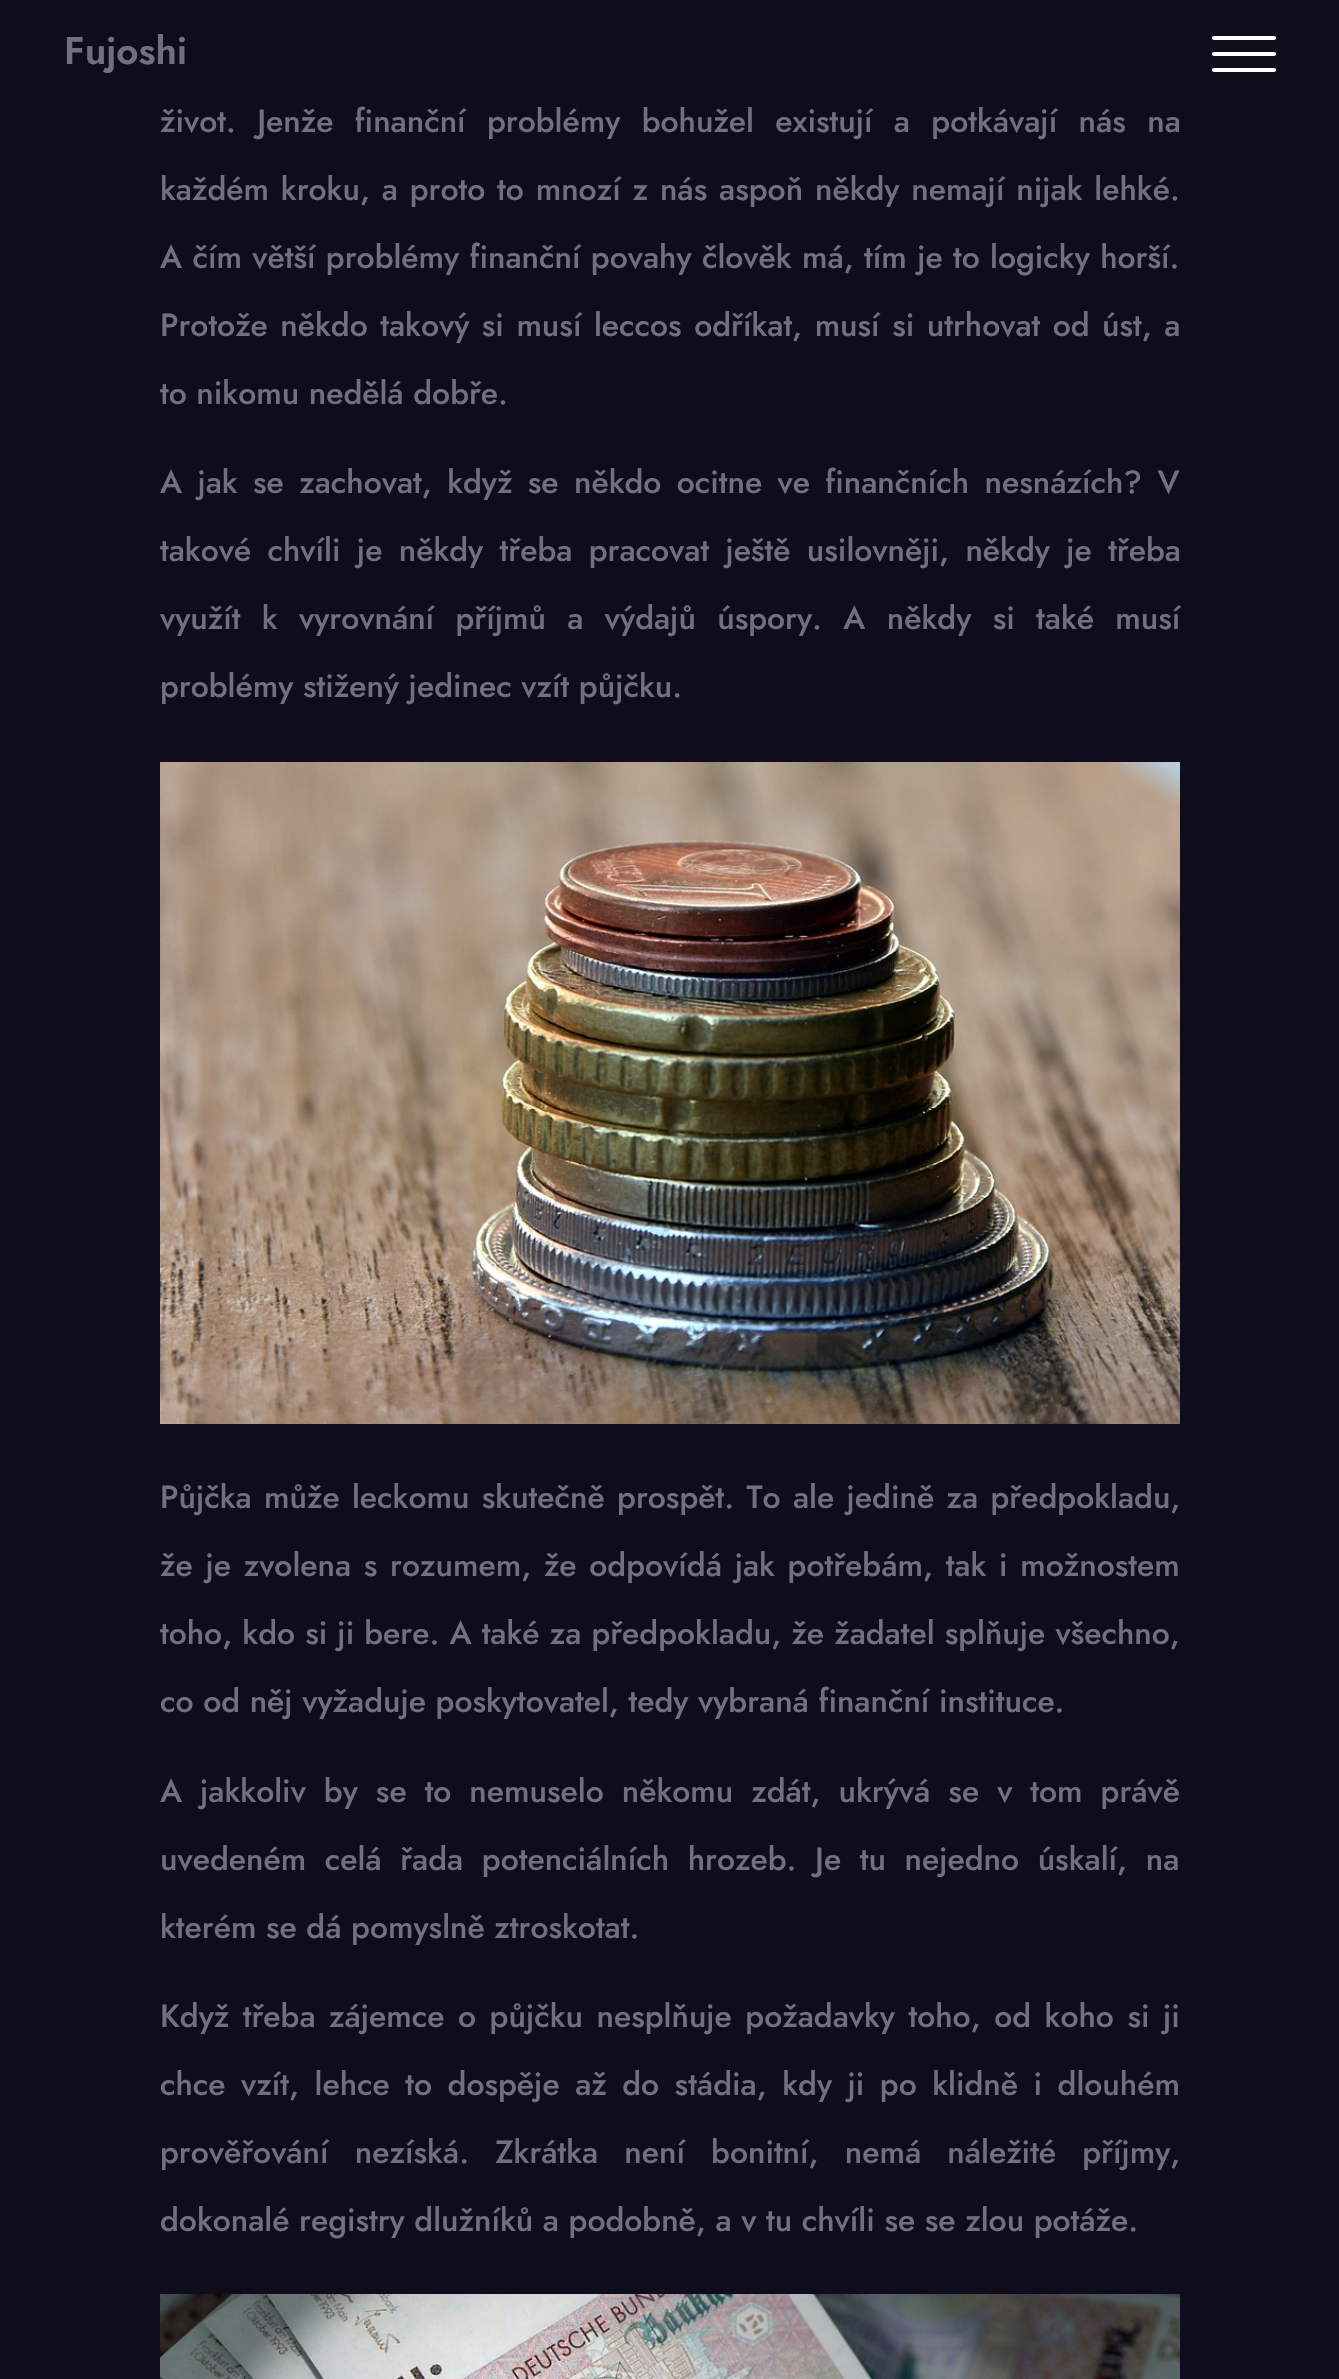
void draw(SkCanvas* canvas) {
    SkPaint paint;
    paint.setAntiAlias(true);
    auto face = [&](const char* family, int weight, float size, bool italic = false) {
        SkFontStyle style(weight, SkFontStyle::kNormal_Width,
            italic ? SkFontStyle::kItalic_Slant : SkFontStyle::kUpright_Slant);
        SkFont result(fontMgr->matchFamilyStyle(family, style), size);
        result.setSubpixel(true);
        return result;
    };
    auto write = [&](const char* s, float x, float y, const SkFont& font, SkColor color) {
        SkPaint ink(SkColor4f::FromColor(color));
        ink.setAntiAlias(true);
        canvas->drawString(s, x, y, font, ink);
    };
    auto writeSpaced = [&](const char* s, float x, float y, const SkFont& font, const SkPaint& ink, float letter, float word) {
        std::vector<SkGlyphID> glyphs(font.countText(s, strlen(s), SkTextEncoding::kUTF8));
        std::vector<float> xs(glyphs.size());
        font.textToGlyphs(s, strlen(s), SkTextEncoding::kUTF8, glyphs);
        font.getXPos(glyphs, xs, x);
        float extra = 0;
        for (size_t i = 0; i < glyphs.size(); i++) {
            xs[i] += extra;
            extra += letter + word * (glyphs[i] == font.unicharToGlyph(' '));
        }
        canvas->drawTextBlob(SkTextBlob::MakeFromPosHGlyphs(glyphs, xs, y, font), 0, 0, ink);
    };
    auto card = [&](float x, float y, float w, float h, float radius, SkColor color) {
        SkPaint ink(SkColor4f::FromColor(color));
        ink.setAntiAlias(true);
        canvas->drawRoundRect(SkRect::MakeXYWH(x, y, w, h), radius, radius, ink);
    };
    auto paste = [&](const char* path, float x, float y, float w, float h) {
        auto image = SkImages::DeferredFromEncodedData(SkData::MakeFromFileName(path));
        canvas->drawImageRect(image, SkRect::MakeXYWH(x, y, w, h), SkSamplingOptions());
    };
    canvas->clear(SkColorSetRGB(15, 13, 29));
    auto kFont1 = face("Jost", 600, 38.5f);
    write("Fujoshi", 64, 64, kFont1, SkColorSetRGB(114, 111, 132));
    card(1212, 36, 64, 4, 2, SK_ColorWHITE);
    card(1212, 52, 64, 4, 2, SK_ColorWHITE);
    card(1212, 68, 64, 4, 2, SK_ColorWHITE);
    auto kFont2 = face("Jost", 500, 32);
    paint.setColor(SkColorSetRGB(114, 111, 132));
    writeSpaced("život. Jenže finanční problémy bohužel existují a potkávají nás na", 160, 132, kFont2, paint, 0, 11.75f);
    writeSpaced("každém kroku, a proto to mnozí z nás aspoň někdy nemají nijak lehké.", 160, 200, kFont2, paint, 0, 2.25f);
    writeSpaced("A čím větší problémy finanční povahy člověk má, tím je to logicky horší.", 160, 268, kFont2, paint, 0, 0.75f);
    writeSpaced("Protože někdo takový si musí leccos odříkat, musí si utrhovat od úst, a", 160, 336, kFont2, paint, 0, 2.9f);
    write("to nikomu nedělá dobře.", 160, 404, kFont2, SkColorSetRGB(114, 111, 132));
    writeSpaced("A jak se zachovat, když se někdo ocitne ve finančních nesnázích? V", 160, 493, kFont2, paint, 0, 5.75f);
    writeSpaced("takové chvíli je někdy třeba pracovat ještě usilovněji, někdy je třeba", 160, 561, kFont2, paint, 0, 6.75f);
    writeSpaced("využít k vyrovnání příjmů a výdajů úspory. A někdy si také musí", 160, 629, kFont2, paint, 0, 11.75f);
    write("problémy stižený jedinec vzít půjčku.", 160, 697, kFont2, SkColorSetRGB(114, 111, 132));
    paste("pic1.png", 160, 762, 1020, 662);
    writeSpaced("Půjčka může leckomu skutečně prospět. To ale jedině za předpokladu,", 160, 1508, kFont2, paint, 0, 2.75f);
    writeSpaced("že je zvolena s rozumem, že odpovídá jak potřebám, tak i možnostem", 160, 1576, kFont2, paint, 0, 3.1f);
    writeSpaced("toho, kdo si ji bere. A také za předpokladu, že žadatel splňuje všechno,", 160, 1644, kFont2, paint, 0, 0.5f);
    write("co od něj vyžaduje poskytovatel, tedy vybraná finanční instituce.", 160, 1712, kFont2, SkColorSetRGB(114, 111, 132));
    writeSpaced("A jakkoliv by se to nemuselo někomu zdát, ukrývá se v tom právě", 160, 1802, kFont2, paint, 0, 8.4f);
    writeSpaced("uvedeném celá řada potenciálních hrozeb. Je tu nejedno úskalí, na", 160, 1870, kFont2, paint, 0, 9);
    write("kterém se dá pomyslně ztroskotat.", 160, 1938, kFont2, SkColorSetRGB(114, 111, 132));
    writeSpaced("Když třeba zájemce o půjčku nesplňuje požadavky toho, od koho si ji", 160, 2027, kFont2, paint, 0, 3.9f);
    writeSpaced("chce vzít, lehce to dospěje až do stádia, kdy ji po klidně i dlouhém", 160, 2095, kFont2, paint, 0, 5.9f);
    writeSpaced("prověřování nezíská. Zkrátka není bonitní, nemá náležité příjmy,", 160, 2163, kFont2, paint, 0, 16.5f);
    write("dokonalé registry dlužníků a podobně, a v tu chvíli se se zlou potáže.", 160, 2231, kFont2, SkColorSetRGB(114, 111, 132));
    paste("pic2.png", 160, 2294, 1020, 85);
}
